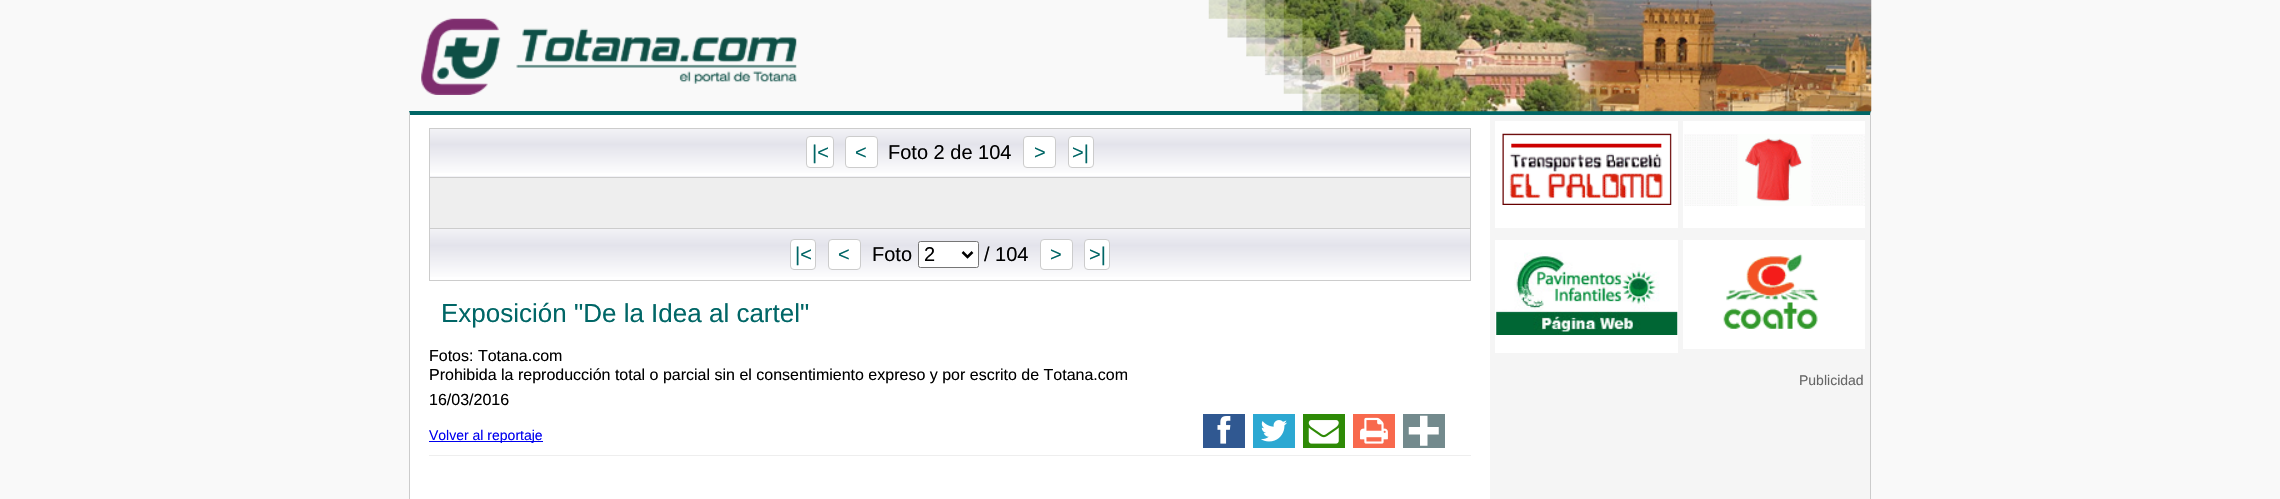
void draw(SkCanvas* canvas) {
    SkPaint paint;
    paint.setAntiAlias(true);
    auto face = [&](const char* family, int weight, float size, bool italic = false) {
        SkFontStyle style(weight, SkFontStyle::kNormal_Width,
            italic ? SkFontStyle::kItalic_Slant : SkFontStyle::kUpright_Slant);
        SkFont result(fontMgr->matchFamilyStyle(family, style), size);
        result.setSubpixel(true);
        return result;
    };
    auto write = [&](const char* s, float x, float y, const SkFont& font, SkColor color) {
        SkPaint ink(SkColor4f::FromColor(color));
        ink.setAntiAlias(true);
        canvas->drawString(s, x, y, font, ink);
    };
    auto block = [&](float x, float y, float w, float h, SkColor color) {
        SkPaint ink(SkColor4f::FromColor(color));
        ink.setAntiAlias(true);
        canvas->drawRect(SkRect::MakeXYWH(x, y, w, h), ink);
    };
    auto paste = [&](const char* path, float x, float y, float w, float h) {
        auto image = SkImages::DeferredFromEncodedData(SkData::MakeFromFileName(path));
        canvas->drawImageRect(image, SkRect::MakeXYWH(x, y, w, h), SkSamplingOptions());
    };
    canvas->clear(SkColorSetRGB(249, 249, 249));
    block(409, 111, 1462, 388, SK_ColorWHITE);
    paint.setColor(SkColorSetRGB(0, 102, 102));
    canvas->drawPath(SkPathBuilder().moveTo(409, 111).lineTo(1871, 111).lineTo(1870, 115).lineTo(410, 115).close().detach(), paint);
    paint.setColor(SkColorSetRGB(204, 204, 204));
    canvas->drawPath(SkPathBuilder().moveTo(1871, 111).lineTo(1871, 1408).lineTo(1870, 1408).lineTo(1870, 115).close().detach(), paint);
    paste("pic1.png", 1208, 0, 664, 112);
    paste("pic2.png", 421, 18, 376, 77);
    canvas->drawPath(SkPathBuilder().moveTo(409, 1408).lineTo(409, 111).lineTo(410, 115).lineTo(410, 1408).close().detach(), paint);
    {
        const SkColor colors[] = {SkColorSetRGB(242, 242, 246), SkColorSetRGB(227, 227, 235), SK_ColorWHITE};
        const float stops[] = {0, 0.32f, 1};
        const SkPoint ends[] = {{950, 129}, {950, 176}};
        paint.setShader(SkGradientShader::MakeLinear(ends, colors, stops, 3, SkTileMode::kClamp));
        paint.setAlpha(255);
    }
    canvas->drawRect(SkRect::MakeXYWH(430, 129, 1040, 44), paint);
    {
        const SkColor colors[] = {SkColorSetRGB(242, 242, 246), SkColorSetRGB(227, 227, 235), SK_ColorWHITE};
        const float stops[] = {0, 0.32f, 1};
        const SkPoint ends[] = {{950, 176}, {950, 224}};
        paint.setShader(SkGradientShader::MakeLinear(ends, colors, stops, 3, SkTileMode::kClamp));
        paint.setAlpha(255);
    }
    canvas->drawRect(SkRect::MakeXYWH(429, 176, 1042, 1), paint);
    paint.setStyle(SkPaint::kStroke_Style);
    paint.setStrokeWidth(1);
    paint.setShader(nullptr);
    paint.setColor(SkColorSetRGB(204, 204, 204));
    canvas->drawRect(SkRect::MakeXYWH(429.5f, 128.5f, 1041, 49), paint);
    paint.setStyle(SkPaint::kFill_Style);
    paint.setColor(SK_ColorWHITE);
    canvas->drawRoundRect(SkRect::MakeXYWH(806.5f, 136.5f, 27, 31), 3.5f, 3.5f, paint);
    paint.setStyle(SkPaint::kStroke_Style);
    paint.setColor(SkColorSetRGB(204, 204, 204));
    canvas->drawRoundRect(SkRect::MakeXYWH(806.5f, 136.5f, 27, 31), 3.5f, 3.5f, paint);
    auto kFont1 = face("Liberation Sans", 400, 20);
    write("|<", 812, 159, kFont1, SkColorSetRGB(0, 102, 102));
    paint.setStyle(SkPaint::kFill_Style);
    paint.setColor(SK_ColorWHITE);
    canvas->drawRoundRect(SkRect::MakeXYWH(845.5f, 136.5f, 32, 31), 3.5f, 3.5f, paint);
    paint.setStyle(SkPaint::kStroke_Style);
    paint.setColor(SkColorSetRGB(204, 204, 204));
    canvas->drawRoundRect(SkRect::MakeXYWH(845.5f, 136.5f, 32, 31), 3.5f, 3.5f, paint);
    write("<", 855, 159, kFont1, SkColorSetRGB(0, 102, 102));
    write("Foto 2 de 104", 888, 159, kFont1, SK_ColorBLACK);
    paint.setStyle(SkPaint::kFill_Style);
    paint.setColor(SK_ColorWHITE);
    canvas->drawRoundRect(SkRect::MakeXYWH(1023.5f, 136.5f, 32, 31), 3.5f, 3.5f, paint);
    paint.setStyle(SkPaint::kStroke_Style);
    paint.setColor(SkColorSetRGB(204, 204, 204));
    canvas->drawRoundRect(SkRect::MakeXYWH(1023.5f, 136.5f, 32, 31), 3.5f, 3.5f, paint);
    write(">", 1034, 159, kFont1, SkColorSetRGB(0, 102, 102));
    paint.setStyle(SkPaint::kFill_Style);
    paint.setColor(SK_ColorWHITE);
    canvas->drawRoundRect(SkRect::MakeXYWH(1068.5f, 136.5f, 25, 31), 3.5f, 3.5f, paint);
    paint.setStyle(SkPaint::kStroke_Style);
    paint.setColor(SkColorSetRGB(204, 204, 204));
    canvas->drawRoundRect(SkRect::MakeXYWH(1068.5f, 136.5f, 25, 31), 3.5f, 3.5f, paint);
    write(">|", 1072, 159, kFont1, SkColorSetRGB(0, 102, 102));
    block(430, 178, 1040, 50, SkColorSetRGB(238, 238, 238));
    block(1470, 178, 1, 50, SkColorSetRGB(204, 204, 204));
    block(429, 178, 1, 50, SkColorSetRGB(204, 204, 204));
    paint.setStyle(SkPaint::kFill_Style);
    {
        const SkColor colors[] = {SkColorSetRGB(242, 242, 246), SkColorSetRGB(227, 227, 235), SK_ColorWHITE};
        const float stops[] = {0, 0.32f, 1};
        const SkPoint ends[] = {{950, 229}, {950, 280}};
        paint.setShader(SkGradientShader::MakeLinear(ends, colors, stops, 3, SkTileMode::kClamp));
        paint.setAlpha(255);
    }
    canvas->drawRect(SkRect::MakeXYWH(430, 229, 1040, 48), paint);
    paint.setStyle(SkPaint::kStroke_Style);
    paint.setShader(nullptr);
    paint.setColor(SkColorSetRGB(204, 204, 204));
    canvas->drawRect(SkRect::MakeXYWH(429.5f, 228.5f, 1041, 52), paint);
    paint.setStyle(SkPaint::kFill_Style);
    paint.setColor(SK_ColorWHITE);
    canvas->drawRoundRect(SkRect::MakeXYWH(790.5f, 239.5f, 25, 30), 3.5f, 3.5f, paint);
    paint.setStyle(SkPaint::kStroke_Style);
    paint.setColor(SkColorSetRGB(204, 204, 204));
    canvas->drawRoundRect(SkRect::MakeXYWH(790.5f, 239.5f, 25, 30), 3.5f, 3.5f, paint);
    write("|<", 795, 261, kFont1, SkColorSetRGB(0, 102, 102));
    paint.setStyle(SkPaint::kFill_Style);
    paint.setColor(SK_ColorWHITE);
    canvas->drawRoundRect(SkRect::MakeXYWH(828.5f, 239.5f, 32, 30), 3.5f, 3.5f, paint);
    paint.setStyle(SkPaint::kStroke_Style);
    paint.setColor(SkColorSetRGB(204, 204, 204));
    canvas->drawRoundRect(SkRect::MakeXYWH(828.5f, 239.5f, 32, 30), 3.5f, 3.5f, paint);
    write("<", 838, 261, kFont1, SkColorSetRGB(0, 102, 102));
    write("Foto", 872, 261, kFont1, SK_ColorBLACK);
    paint.setStyle(SkPaint::kFill_Style);
    paint.setColor(SK_ColorWHITE);
    canvas->drawRoundRect(SkRect::MakeXYWH(918.5f, 241.5f, 60, 26), 2, 2, paint);
    paint.setStyle(SkPaint::kStroke_Style);
    paint.setColor(SkColorSetRGB(118, 118, 118));
    canvas->drawRoundRect(SkRect::MakeXYWH(918.5f, 241.5f, 60, 26), 2, 2, paint);
    paint.setStrokeWidth(2.5f);
    paint.setColor(SK_ColorBLACK);
    canvas->drawPath(SkPathBuilder().moveTo(962.5f, 252).lineTo(967.5f, 257).lineTo(972.5f, 252).detach(), paint);
    write("2", 924, 261, kFont1, SK_ColorBLACK);
    write("/ 104", 984, 261, kFont1, SK_ColorBLACK);
    paint.setStyle(SkPaint::kFill_Style);
    paint.setColor(SK_ColorWHITE);
    canvas->drawRoundRect(SkRect::MakeXYWH(1040.5f, 239.5f, 32, 30), 3.5f, 3.5f, paint);
    paint.setStyle(SkPaint::kStroke_Style);
    paint.setStrokeWidth(1);
    paint.setColor(SkColorSetRGB(204, 204, 204));
    canvas->drawRoundRect(SkRect::MakeXYWH(1040.5f, 239.5f, 32, 30), 3.5f, 3.5f, paint);
    write(">", 1050, 261, kFont1, SkColorSetRGB(0, 102, 102));
    paint.setStyle(SkPaint::kFill_Style);
    paint.setColor(SK_ColorWHITE);
    canvas->drawRoundRect(SkRect::MakeXYWH(1084.5f, 239.5f, 25, 30), 3.5f, 3.5f, paint);
    paint.setStyle(SkPaint::kStroke_Style);
    paint.setColor(SkColorSetRGB(204, 204, 204));
    canvas->drawRoundRect(SkRect::MakeXYWH(1084.5f, 239.5f, 25, 30), 3.5f, 3.5f, paint);
    write(">|", 1089, 261, kFont1, SkColorSetRGB(0, 102, 102));
    auto kFont2 = face("Liberation Sans", 400, 26);
    write("Exposición \"De la Idea al cartel\"", 441, 322, kFont2, SkColorSetRGB(0, 102, 102));
    auto kFont3 = face("Liberation Sans", 400, 16);
    write("Fotos: Totana.com", 429, 361, kFont3, SK_ColorBLACK);
    write("Prohibida la reproducción total o parcial sin el consentimiento expreso y por escrito de Totana.com", 429, 380, kFont3, SK_ColorBLACK);
    write("16/03/2016", 429, 405, kFont3, SK_ColorBLACK);
    block(429, 455, 1042, 1, SkColorSetRGB(238, 238, 238));
    block(429, 441, 114, 1, SkColorSetRGB(0, 0, 238));
    auto kFont4 = face("Liberation Sans", 400, 14);
    write("Volver al reportaje", 429, 440, kFont4, SkColorSetRGB(0, 0, 238));
    block(1203, 414, 42, 34, SkColorSetRGB(48, 88, 145));
    paste("pic3.png", 1217, 416, 14, 28);
    block(1253, 414, 42, 34, SkColorSetRGB(44, 168, 210));
    paste("pic4.png", 1261, 420, 26, 22);
    block(1303, 414, 42, 34, SkColorSetRGB(46, 138, 6));
    paste("pic5.png", 1308, 420, 31, 24);
    block(1353, 414, 42, 34, SkColorSetRGB(248, 105, 77));
    paste("pic6.png", 1360, 417, 28, 27);
    block(1403, 414, 42, 34, SkColorSetRGB(115, 138, 141));
    paste("pic7.png", 1408, 415, 31, 31);
    block(1490, 115, 380, 384, SkColorSetRGB(245, 245, 245));
    block(1495, 121, 183, 107, SK_ColorWHITE);
    paste("pic8.png", 1502, 133, 170, 72);
    block(1683, 121, 182, 107, SK_ColorWHITE);
    paste("pic9.png", 1684, 134, 181, 72);
    block(1495, 240, 183, 113, SK_ColorWHITE);
    paste("pic10.png", 1496, 252, 182, 83);
    block(1683, 240, 182, 109, SK_ColorWHITE);
    paste("pic11.png", 1723, 253, 96, 76);
    write("Publicidad", 1799, 385, kFont4, SkColorSetRGB(102, 102, 102));
}
